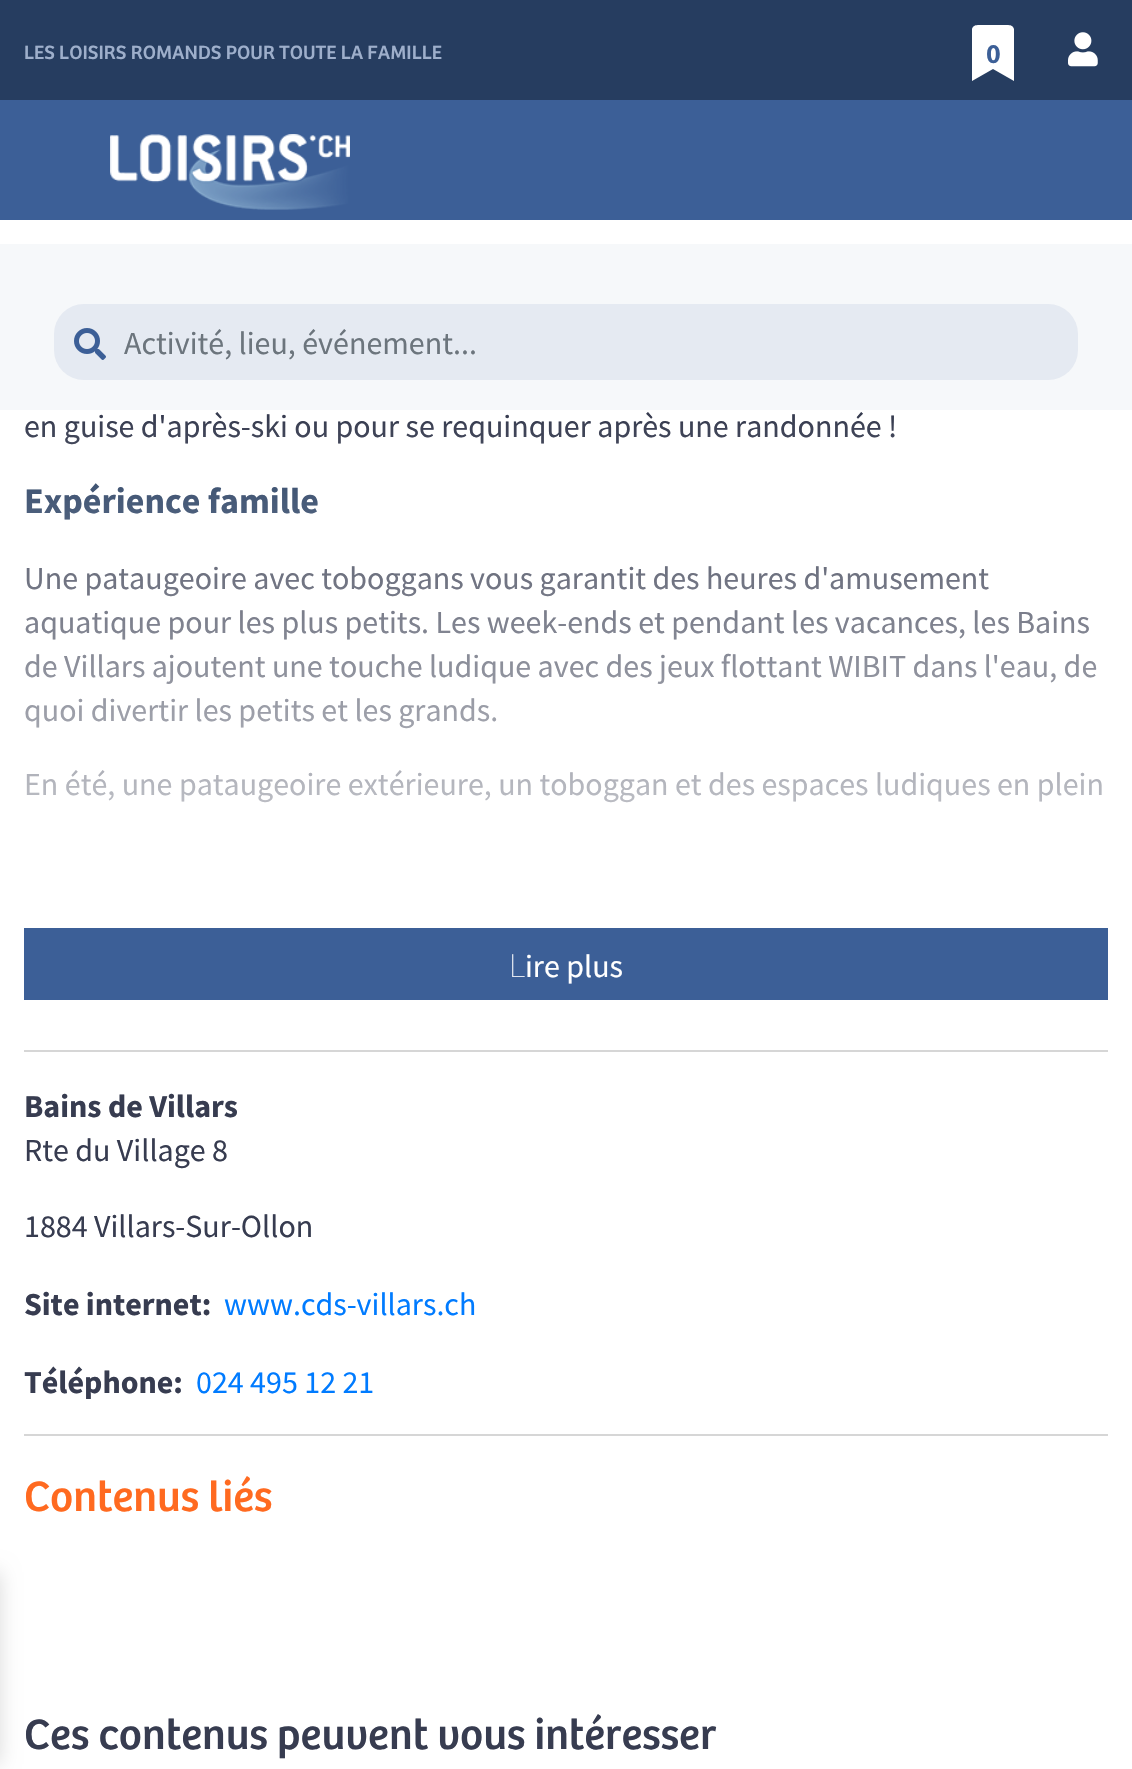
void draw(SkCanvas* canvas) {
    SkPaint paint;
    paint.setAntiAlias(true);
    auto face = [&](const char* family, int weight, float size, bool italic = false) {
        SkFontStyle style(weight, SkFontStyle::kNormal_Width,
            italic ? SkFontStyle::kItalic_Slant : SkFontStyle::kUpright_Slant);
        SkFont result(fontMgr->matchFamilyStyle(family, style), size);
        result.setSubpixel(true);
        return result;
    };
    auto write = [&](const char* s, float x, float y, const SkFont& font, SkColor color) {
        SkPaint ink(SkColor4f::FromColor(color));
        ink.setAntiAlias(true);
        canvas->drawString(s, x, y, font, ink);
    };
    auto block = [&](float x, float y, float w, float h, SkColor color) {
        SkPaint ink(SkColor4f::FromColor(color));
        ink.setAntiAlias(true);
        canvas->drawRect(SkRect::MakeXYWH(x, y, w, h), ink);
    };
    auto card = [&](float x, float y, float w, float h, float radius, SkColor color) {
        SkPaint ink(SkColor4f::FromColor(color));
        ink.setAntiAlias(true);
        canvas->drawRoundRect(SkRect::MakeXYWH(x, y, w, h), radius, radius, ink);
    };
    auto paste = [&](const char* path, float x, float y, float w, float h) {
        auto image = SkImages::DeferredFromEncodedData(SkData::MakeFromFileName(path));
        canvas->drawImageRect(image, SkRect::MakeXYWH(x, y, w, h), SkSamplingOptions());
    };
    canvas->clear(SK_ColorWHITE);
    block(0, 0, 1132, 100, SkColorSetRGB(38, 61, 96));
    auto kFont1 = face("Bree", 400, 20);
    write("LES LOISIRS ROMANDS POUR TOUTE LA FAMILLE", 24, 59, kFont1, SkColorSetRGB(158, 175, 203));
    paint.setColor(SK_ColorWHITE);
    canvas->drawPath(SkPathBuilder().moveTo(972, 81).lineTo(972, 29).cubicTo(973, 24, 979, 25, 982, 25).lineTo(1004, 25).cubicTo(1007, 25, 1013, 24, 1014, 29).lineTo(1014, 81).lineTo(993, 69).close().detach(), paint);
    auto kFont2 = face("Source Sans Pro", 700, 28);
    write("0", 986, 63, kFont2, SkColorSetRGB(60, 95, 151));
    paste("pic1.png", 1068, 32, 30, 35);
    block(0, 100, 1132, 120, SkColorSetRGB(60, 95, 151));
    paste("pic2.png", 110, 134, 240, 76);
    block(0, 244, 1132, 166, SkColorSetRGB(246, 248, 250));
    card(54, 304, 1024, 76, 30, SkColorSetRGB(229, 234, 242));
    paste("pic3.png", 74, 328, 32, 32);
    auto kFont3 = face("Source Sans Pro", 400, 32);
    write("Activité, lieu, événement...", 124, 354, kFont3, SkColorSetRGB(108, 117, 125));
    paint.setColor(SkColorSetARGB(36, 0, 0, 0));
    paint.setMaskFilter(SkMaskFilter::MakeBlur(kNormal_SkBlurStyle, 10));
    canvas->drawRect(SkRect::MakeXYWH(-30, 1572, 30, 192), paint);
    paint.setMaskFilter(nullptr);
    write("en guise d'après-ski ou pour se requinquer après une randonnée !", 24, 437, kFont3, SkColorSetRGB(55, 60, 80));
    auto kFont4 = face("Source Sans Pro", 700, 36);
    write("Expérience famille", 24, 513, kFont4, SkColorSetRGB(38, 61, 96));
    write("Une pataugeoire avec toboggans vous garantit des heures d'amusement", 24, 589, kFont3, SkColorSetRGB(55, 60, 80));
    write("aquatique pour les plus petits. Les week-ends et pendant les vacances, les Bains", 24, 633, kFont3, SkColorSetRGB(55, 60, 80));
    write("de Villars ajoutent une touche ludique avec des jeux flottant WIBIT dans l'eau, de", 24, 677, kFont3, SkColorSetRGB(55, 60, 80));
    write("quoi divertir les petits et les grands.", 24, 721, kFont3, SkColorSetRGB(55, 60, 80));
    write("En été, une pataugeoire extérieure, un toboggan et des espaces ludiques en plein", 24, 795, kFont3, SkColorSetRGB(55, 60, 80));
    {
        const SkColor colors[] = {SK_ColorWHITE, SkColorSetARGB(0, 255, 255, 255)};
        const float stops[] = {0, 0.8f};
        const SkPoint ends[] = {{566, 1010}, {566, 260}};
        paint.setShader(SkGradientShader::MakeLinear(ends, colors, stops, 2, SkTileMode::kClamp));
        paint.setAlpha(255);
    }
    canvas->drawRect(SkRect::MakeXYWH(25, 423, 1077, 380), paint);
    block(24, 928, 1084, 72, SkColorSetRGB(60, 95, 151));
    auto kFont5 = face("Noto Sans", 100, 32);
    write("L", 509, 977, kFont5, SK_ColorWHITE);
    write("ire plus", 525, 977, kFont3, SK_ColorWHITE);
    block(24, 1050, 1084, 2, SkColorSetRGB(214, 214, 214));
    block(24, 1434, 1084, 2, SkColorSetRGB(214, 214, 214));
    auto kFont6 = face("Source Sans Pro", 700, 32);
    write("Bains de Villars", 24, 1117, kFont6, SkColorSetRGB(55, 60, 80));
    write("Rte du Village 8", 24, 1161, kFont3, SkColorSetRGB(55, 60, 80));
    write("1884 Villars-Sur-Ollon", 24, 1237, kFont3, SkColorSetRGB(55, 60, 80));
    write("Site internet:", 24, 1315, kFont6, SkColorSetRGB(55, 60, 80));
    write("www.cds-villars.ch", 224, 1315, kFont3, SkColorSetRGB(0, 123, 255));
    write("Téléphone:", 24, 1393, kFont6, SkColorSetRGB(55, 60, 80));
    write("024 495 12 21", 196, 1393, kFont3, SkColorSetRGB(0, 123, 255));
    auto kFont7 = face("Bree", 400, 44);
    write("Contenus liés", 24, 1511, kFont7, SkColorSetRGB(255, 106, 32));
    write("Ces contenus peuvent vous intéresser", 24, 1749, kFont7, SkColorSetRGB(55, 60, 80));
}
